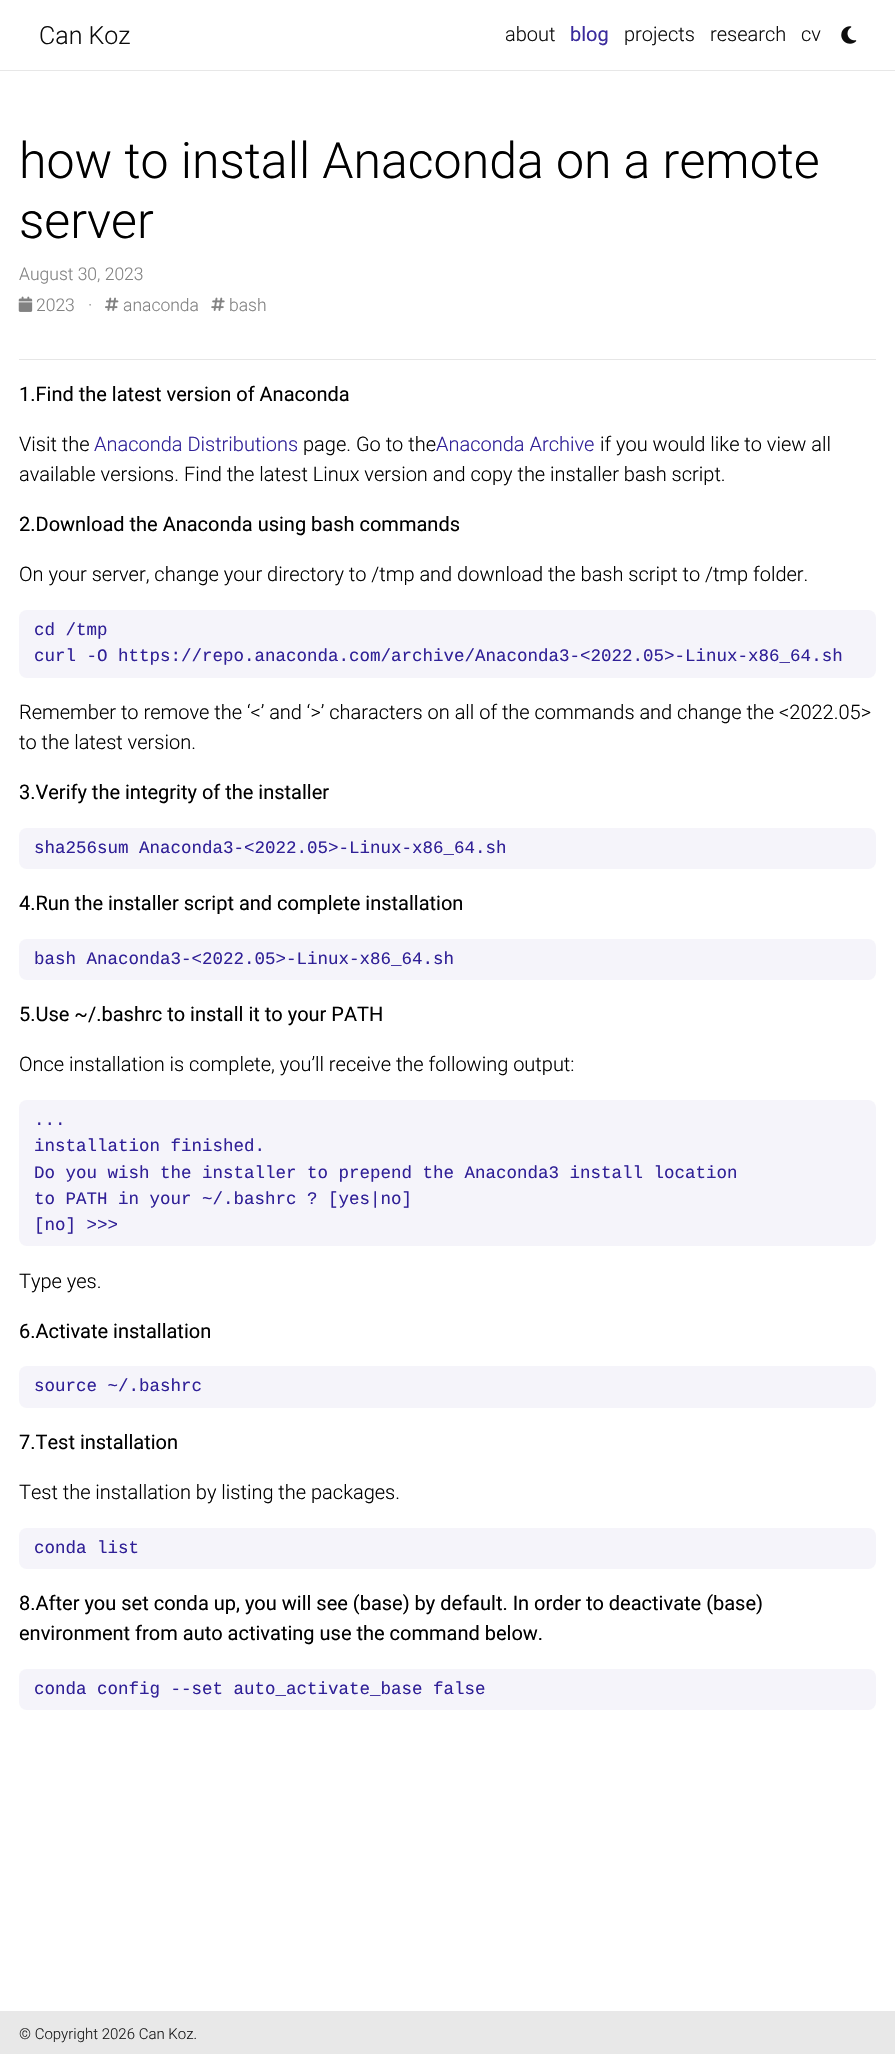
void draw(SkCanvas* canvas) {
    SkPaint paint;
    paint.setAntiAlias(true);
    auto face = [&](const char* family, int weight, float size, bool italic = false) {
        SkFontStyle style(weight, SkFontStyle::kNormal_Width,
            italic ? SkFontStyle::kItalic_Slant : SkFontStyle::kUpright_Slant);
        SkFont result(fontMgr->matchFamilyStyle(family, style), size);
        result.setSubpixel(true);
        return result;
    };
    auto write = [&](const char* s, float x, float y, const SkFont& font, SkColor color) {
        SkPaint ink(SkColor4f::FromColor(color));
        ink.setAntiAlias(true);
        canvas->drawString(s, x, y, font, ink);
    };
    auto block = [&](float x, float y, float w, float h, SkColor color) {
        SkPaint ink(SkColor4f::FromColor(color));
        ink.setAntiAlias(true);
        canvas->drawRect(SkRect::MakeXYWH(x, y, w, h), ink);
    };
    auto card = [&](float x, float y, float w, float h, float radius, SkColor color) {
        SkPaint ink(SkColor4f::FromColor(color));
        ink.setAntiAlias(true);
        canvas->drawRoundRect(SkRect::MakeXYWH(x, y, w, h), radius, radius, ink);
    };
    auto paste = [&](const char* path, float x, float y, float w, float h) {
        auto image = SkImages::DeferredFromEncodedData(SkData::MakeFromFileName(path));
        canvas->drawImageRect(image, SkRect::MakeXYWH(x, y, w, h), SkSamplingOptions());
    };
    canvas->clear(SK_ColorWHITE);
    block(0, 70, 895, 1, SkColorSetRGB(231, 231, 231));
    auto kFont1 = face("Roboto", 300, 25);
    write("Can Koz", 39, 44, kFont1, SkColorSetRGB(13, 13, 13));
    auto kFont2 = face("Roboto", 300, 20);
    write("about", 505, 41, kFont2, SkColorSetRGB(13, 13, 13));
    auto kFont3 = face("Roboto", 400, 20);
    write("blog", 570, 41, kFont3, SkColorSetRGB(58, 43, 156));
    write("projects", 624, 41, kFont2, SkColorSetRGB(13, 13, 13));
    write("research", 710, 41, kFont2, SkColorSetRGB(13, 13, 13));
    write("cv", 801, 41, kFont2, SkColorSetRGB(13, 13, 13));
    paste("pic1.png", 841, 26, 16, 18);
    auto kFont4 = face("Roboto", 300, 50);
    write("how to install Anaconda on a remote", 19, 178, kFont4, SK_ColorBLACK);
    write("server", 19, 238, kFont4, SK_ColorBLACK);
    auto kFont5 = face("Roboto", 300, 17.5f);
    write("August 30, 2023", 19, 280, kFont5, SkColorSetRGB(130, 130, 130));
    paste("pic2.png", 18, 296, 15, 16);
    write("2023", 36, 311, kFont5, SkColorSetRGB(130, 130, 130));
    write("·", 88, 311, kFont5, SkColorSetRGB(130, 130, 130));
    paste("pic3.png", 105, 297, 14, 14);
    write("anaconda", 123, 311, kFont5, SkColorSetRGB(130, 130, 130));
    paste("pic4.png", 211, 297, 14, 14);
    write("bash", 229, 311, kFont5, SkColorSetRGB(130, 130, 130));
    block(19, 359, 857, 1, SkColorSetRGB(230, 230, 230));
    write("1.Find the latest version of Anaconda", 19, 401, kFont3, SK_ColorBLACK);
    write("Visit the", 19, 451, kFont2, SK_ColorBLACK);
    write("Anaconda Distributions", 94, 451, kFont2, SkColorSetRGB(48, 32, 151));
    write("page. Go to the", 303, 451, kFont2, SK_ColorBLACK);
    write("Anaconda Archive", 436, 451, kFont2, SkColorSetRGB(48, 32, 151));
    write("if you would like to view all", 600, 451, kFont2, SK_ColorBLACK);
    write("available versions. Find the latest Linux version and copy the installer bash script.", 19, 481, kFont2, SK_ColorBLACK);
    write("2.Download the Anaconda using bash commands", 19, 531, kFont3, SK_ColorBLACK);
    write("On your server, change your directory to /tmp and download the bash script to /tmp folder.", 19, 581, kFont2, SK_ColorBLACK);
    card(19, 610, 857, 68, 8, SkColorSetRGB(245, 244, 250));
    auto kFont6 = face("Liberation Mono", 400, 17.5f);
    write("cd /tmp", 34, 635, kFont6, SkColorSetRGB(48, 32, 151));
    write("curl -O https://repo.anaconda.com/archive/Anaconda3-<2022.05>-Linux-x86_64.sh", 34, 661, kFont6, SkColorSetRGB(48, 32, 151));
    write("Remember to remove the ‘<’ and ‘>’ characters on all of the commands and change the <2022.05>", 19, 719, kFont2, SK_ColorBLACK);
    write("to the latest version.", 19, 749, kFont2, SK_ColorBLACK);
    write("3.Verify the integrity of the installer", 19, 799, kFont3, SK_ColorBLACK);
    card(19, 828, 857, 41, 8, SkColorSetRGB(245, 244, 250));
    write("sha256sum Anaconda3-<2022.05>-Linux-x86_64.sh", 34, 853, kFont6, SkColorSetRGB(48, 32, 151));
    write("4.Run the installer script and complete installation", 19, 910, kFont3, SK_ColorBLACK);
    card(19, 939, 857, 41, 8, SkColorSetRGB(245, 244, 250));
    write("bash Anaconda3-<2022.05>-Linux-x86_64.sh", 34, 964, kFont6, SkColorSetRGB(48, 32, 151));
    write("5.Use ~/.bashrc to install it to your PATH", 19, 1021, kFont3, SK_ColorBLACK);
    write("Once installation is complete, you’ll receive the following output:", 19, 1071, kFont2, SK_ColorBLACK);
    card(19, 1100, 857, 146, 8, SkColorSetRGB(245, 244, 250));
    write("...", 34, 1125, kFont6, SkColorSetRGB(48, 32, 151));
    write("installation finished.", 34, 1151, kFont6, SkColorSetRGB(48, 32, 151));
    write("Do you wish the installer to prepend the Anaconda3 install location", 34, 1178, kFont6, SkColorSetRGB(48, 32, 151));
    write("to PATH in your ~/.bashrc ? [yes|no]", 34, 1204, kFont6, SkColorSetRGB(48, 32, 151));
    write("[no] >>>", 34, 1230, kFont6, SkColorSetRGB(48, 32, 151));
    write("Type yes.", 19, 1288, kFont2, SK_ColorBLACK);
    write("6.Activate installation", 19, 1338, kFont3, SK_ColorBLACK);
    card(19, 1366, 857, 42, 8, SkColorSetRGB(245, 244, 250));
    write("source ~/.bashrc", 34, 1391, kFont6, SkColorSetRGB(48, 32, 151));
    write("7.Test installation", 19, 1449, kFont3, SK_ColorBLACK);
    write("Test the installation by listing the packages.", 19, 1499, kFont2, SK_ColorBLACK);
    card(19, 1528, 857, 41, 8, SkColorSetRGB(245, 244, 250));
    write("conda list", 34, 1553, kFont6, SkColorSetRGB(48, 32, 151));
    write("8.After you set conda up, you will see (base) by default. In order to deactivate (base)", 19, 1610, kFont3, SK_ColorBLACK);
    write("environment from auto activating use the command below.", 19, 1640, kFont3, SK_ColorBLACK);
    card(19, 1669, 857, 41, 8, SkColorSetRGB(245, 244, 250));
    write("conda config --set auto_activate_base false", 34, 1694, kFont6, SkColorSetRGB(48, 32, 151));
    block(0, 2011, 895, 43, SkColorSetRGB(232, 232, 232));
    auto kFont7 = face("Roboto", 300, 15);
    write("© Copyright 2026 Can Koz.", 19, 2039, kFont7, SkColorSetRGB(28, 28, 29));
}
